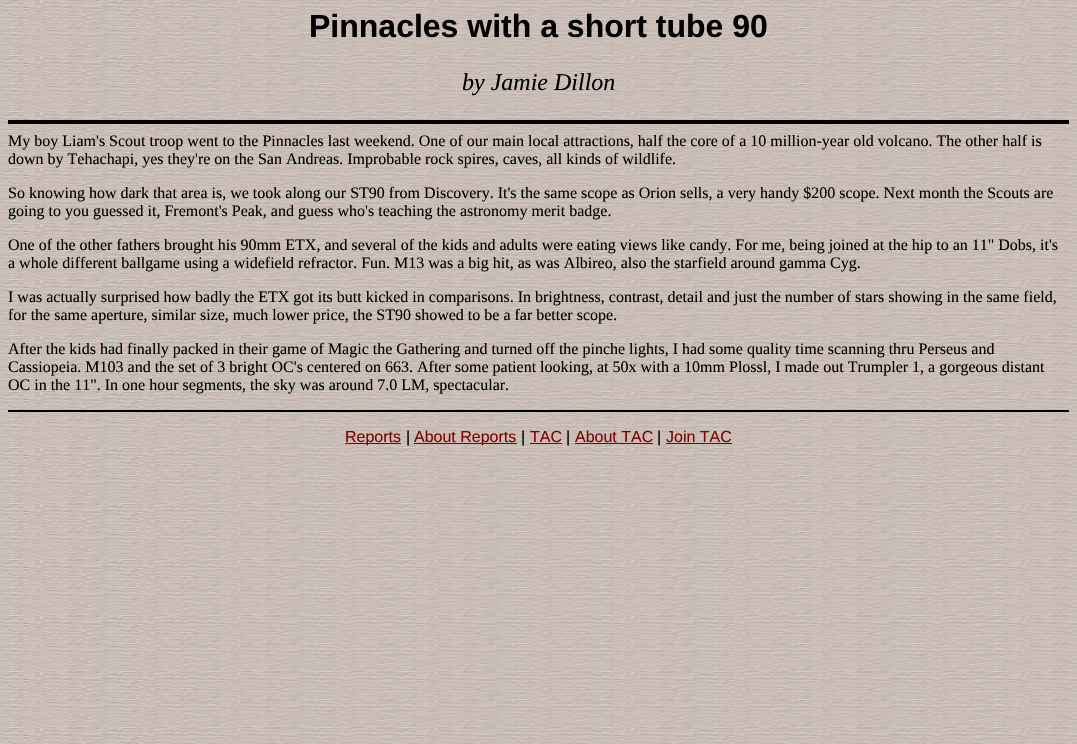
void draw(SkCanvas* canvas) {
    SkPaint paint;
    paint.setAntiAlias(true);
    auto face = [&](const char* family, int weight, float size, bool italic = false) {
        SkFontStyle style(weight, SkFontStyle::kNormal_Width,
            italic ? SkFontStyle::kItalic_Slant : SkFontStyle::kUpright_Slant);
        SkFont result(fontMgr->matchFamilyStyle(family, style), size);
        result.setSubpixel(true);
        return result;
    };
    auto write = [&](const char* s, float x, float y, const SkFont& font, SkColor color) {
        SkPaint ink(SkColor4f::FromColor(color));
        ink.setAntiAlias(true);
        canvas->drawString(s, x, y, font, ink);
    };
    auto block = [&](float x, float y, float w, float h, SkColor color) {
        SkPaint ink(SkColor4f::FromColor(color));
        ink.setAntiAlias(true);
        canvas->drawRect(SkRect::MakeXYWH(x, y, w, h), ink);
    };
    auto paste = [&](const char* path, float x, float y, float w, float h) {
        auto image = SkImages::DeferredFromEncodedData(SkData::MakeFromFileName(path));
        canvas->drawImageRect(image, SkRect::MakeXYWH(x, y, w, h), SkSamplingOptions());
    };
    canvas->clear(SK_ColorWHITE);
    paste("pic1.png", 0, 0, 1077, 744);
    auto kFont1 = face("Liberation Sans", 700, 32);
    write("Pinnacles with a short tube 90", 309, 37, kFont1, SK_ColorBLACK);
    auto kFont2 = face("Liberation Serif", 400, 24, true);
    write("by Jamie Dillon", 462, 90, kFont2, SK_ColorBLACK);
    block(8, 120, 1061, 4, SK_ColorBLACK);
    auto kFont3 = face("Liberation Serif", 400, 16);
    write("My boy Liam's Scout troop went to the Pinnacles last weekend. One of our main local attractions, half the core of a 10 million-year old volcano. The other half is", 8, 146, kFont3, SK_ColorBLACK);
    write("down by Tehachapi, yes they're on the San Andreas. Improbable rock spires, caves, all kinds of wildlife.", 8, 164, kFont3, SK_ColorBLACK);
    write("So knowing how dark that area is, we took along our ST90 from Discovery. It's the same scope as Orion sells, a very handy $200 scope. Next month the Scouts are", 8, 198, kFont3, SK_ColorBLACK);
    write("going to you guessed it, Fremont's Peak, and guess who's teaching the astronomy merit badge.", 8, 216, kFont3, SK_ColorBLACK);
    write("One of the other fathers brought his 90mm ETX, and several of the kids and adults were eating views like candy. For me, being joined at the hip to an 11\" Dobs, it's", 8, 250, kFont3, SK_ColorBLACK);
    write("a whole different ballgame using a widefield refractor. Fun. M13 was a big hit, as was Albireo, also the starfield around gamma Cyg.", 8, 268, kFont3, SK_ColorBLACK);
    write("I was actually surprised how badly the ETX got its butt kicked in comparisons. In brightness, contrast, detail and just the number of stars showing in the same field,", 8, 302, kFont3, SK_ColorBLACK);
    write("for the same aperture, similar size, much lower price, the ST90 showed to be a far better scope.", 8, 320, kFont3, SK_ColorBLACK);
    write("After the kids had finally packed in their game of Magic the Gathering and turned off the pinche lights, I had some quality time scanning thru Perseus and", 8, 354, kFont3, SK_ColorBLACK);
    write("Cassiopeia. M103 and the set of 3 bright OC's centered on 663. After some patient looking, at 50x with a 10mm Plossl, I made out Trumpler 1, a gorgeous distant", 8, 372, kFont3, SK_ColorBLACK);
    write("OC in the 11\". In one hour segments, the sky was around 7.0 LM, spectacular.", 8, 390, kFont3, SK_ColorBLACK);
    block(8, 410, 1061, 2, SK_ColorBLACK);
    block(345, 443, 56, 1, SkColorSetRGB(127, 0, 0));
    auto kFont4 = face("Liberation Sans", 400, 16);
    write("Reports", 345, 442, kFont4, SkColorSetRGB(127, 0, 0));
    write("|", 406, 442, kFont4, SK_ColorBLACK);
    block(414, 443, 103, 1, SkColorSetRGB(127, 0, 0));
    write("About Reports", 414, 442, kFont4, SkColorSetRGB(127, 0, 0));
    write("|", 521, 442, kFont4, SK_ColorBLACK);
    write("TAC", 530, 442, kFont4, SkColorSetRGB(127, 0, 0));
    block(530, 443, 32, 1, SkColorSetRGB(127, 0, 0));
    write("|", 566, 442, kFont4, SK_ColorBLACK);
    write("About TAC", 575, 442, kFont4, SkColorSetRGB(127, 0, 0));
    block(575, 443, 78, 1, SkColorSetRGB(127, 0, 0));
    write("|", 657, 442, kFont4, SK_ColorBLACK);
    write("Join TAC", 666, 442, kFont4, SkColorSetRGB(127, 0, 0));
    block(666, 443, 66, 1, SkColorSetRGB(127, 0, 0));
}
